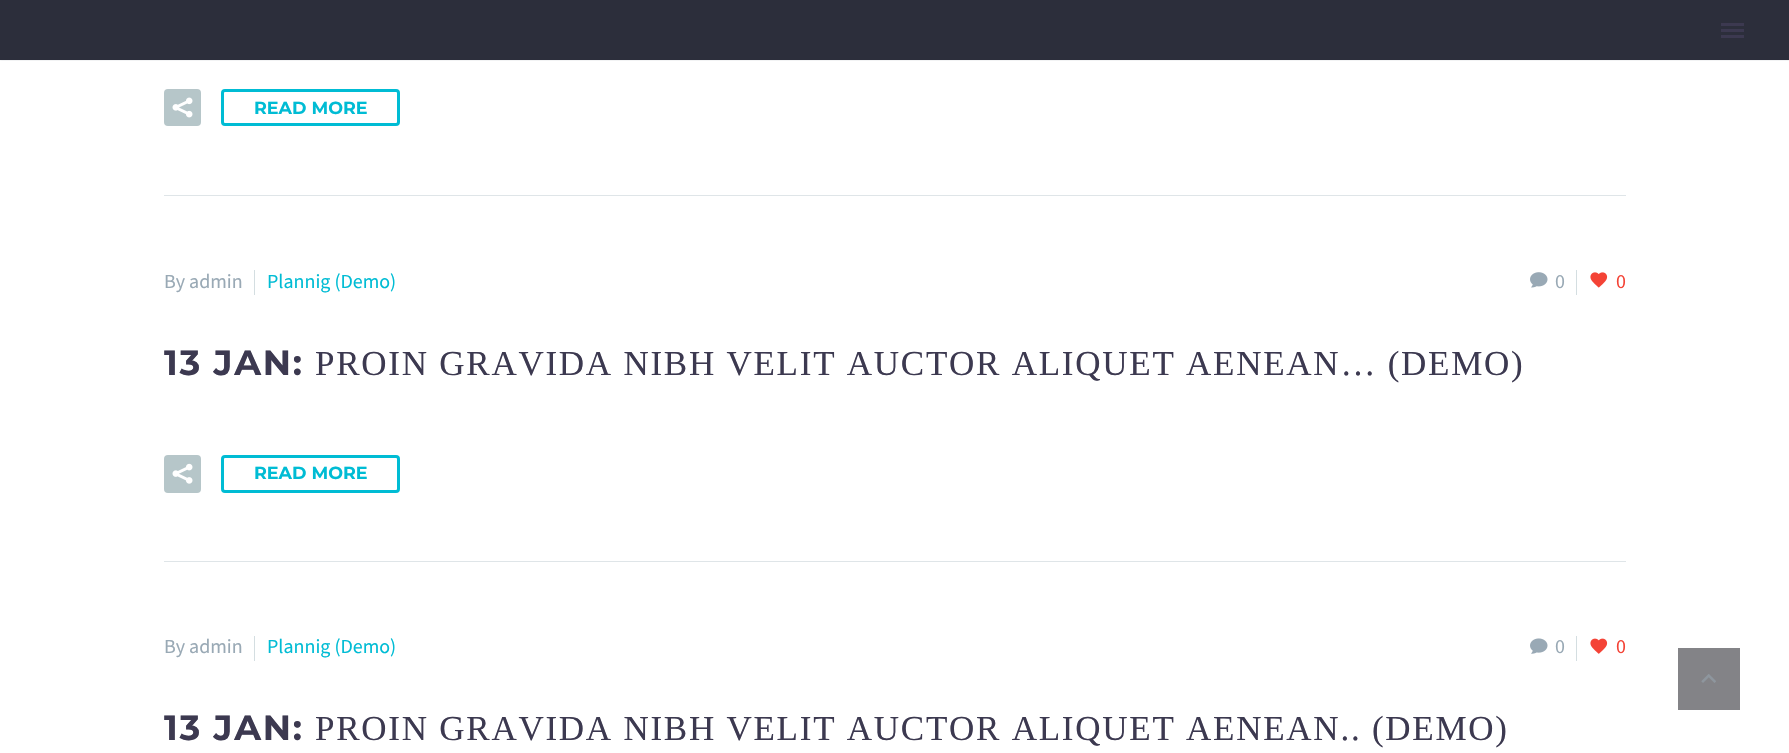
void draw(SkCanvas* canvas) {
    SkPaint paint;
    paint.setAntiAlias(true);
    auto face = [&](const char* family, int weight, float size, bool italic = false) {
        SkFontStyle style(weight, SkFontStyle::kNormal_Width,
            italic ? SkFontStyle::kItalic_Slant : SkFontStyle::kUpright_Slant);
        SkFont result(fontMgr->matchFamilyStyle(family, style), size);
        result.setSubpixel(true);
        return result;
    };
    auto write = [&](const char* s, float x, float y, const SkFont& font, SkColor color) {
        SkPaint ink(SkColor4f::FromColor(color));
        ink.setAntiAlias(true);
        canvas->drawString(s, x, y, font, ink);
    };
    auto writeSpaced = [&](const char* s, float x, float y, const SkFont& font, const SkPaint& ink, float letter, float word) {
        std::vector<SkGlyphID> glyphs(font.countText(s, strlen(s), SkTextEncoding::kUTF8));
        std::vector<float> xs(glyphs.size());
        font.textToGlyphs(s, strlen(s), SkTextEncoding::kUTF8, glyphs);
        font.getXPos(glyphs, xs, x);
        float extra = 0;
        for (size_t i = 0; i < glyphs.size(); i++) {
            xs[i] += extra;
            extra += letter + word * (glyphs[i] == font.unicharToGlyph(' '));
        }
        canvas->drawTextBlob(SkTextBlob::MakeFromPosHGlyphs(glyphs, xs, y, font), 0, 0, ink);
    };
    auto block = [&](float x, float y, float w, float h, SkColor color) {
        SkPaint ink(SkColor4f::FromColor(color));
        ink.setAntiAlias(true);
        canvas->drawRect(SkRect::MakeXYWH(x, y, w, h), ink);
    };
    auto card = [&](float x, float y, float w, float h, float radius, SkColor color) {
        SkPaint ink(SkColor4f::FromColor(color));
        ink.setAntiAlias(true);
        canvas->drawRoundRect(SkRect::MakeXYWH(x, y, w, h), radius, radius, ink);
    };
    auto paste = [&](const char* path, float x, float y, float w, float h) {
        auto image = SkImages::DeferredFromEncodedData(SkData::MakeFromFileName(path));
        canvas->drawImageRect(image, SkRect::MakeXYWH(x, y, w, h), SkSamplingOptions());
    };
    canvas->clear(SK_ColorWHITE);
    block(0, 0, 1789, 60, SkColorSetRGB(44, 46, 59));
    canvas->save();
    canvas->clipRect(SkRect::MakeXYWH(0, 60, 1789, 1));
    paint.setColor(SkColorSetARGB(51, 56, 69, 84));
    paint.setMaskFilter(SkMaskFilter::MakeBlur(kNormal_SkBlurStyle, 1));
    canvas->drawRect(SkRect::MakeXYWH(0, 0, 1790, 60), paint);
    paint.setMaskFilter(nullptr);
    canvas->restore();
    block(1721, 23, 23, 3, SkColorSetRGB(60, 57, 80));
    block(1721, 29, 23, 3, SkColorSetRGB(60, 57, 80));
    block(1721, 35, 23, 3, SkColorSetRGB(60, 57, 80));
    block(164, 195, 1462, 1, SkColorSetRGB(223, 229, 232));
    card(164, 89, 37, 37, 4, SkColorSetRGB(182, 198, 201));
    paste("pic1.png", 172, 97, 21, 21);
    paint.setStyle(SkPaint::kStroke_Style);
    paint.setStrokeWidth(3);
    paint.setColor(SkColorSetRGB(0, 188, 212));
    canvas->drawRoundRect(SkRect::MakeXYWH(222.5f, 90.5f, 176, 34), 2.5f, 2.5f, paint);
    auto kFont1 = face("Montserrat", 700, 17.5f);
    write("READ MORE", 254, 114, kFont1, SkColorSetRGB(0, 188, 212));
    block(164, 561, 1462, 1, SkColorSetRGB(223, 229, 232));
    auto kFont2 = face("Source Sans Pro", 400, 20);
    write("By admin", 164, 288, kFont2, SkColorSetRGB(153, 169, 181));
    block(254, 270, 1, 25, SkColorSetRGB(212, 222, 225));
    write("Plannig (Demo)", 267, 288, kFont2, SkColorSetRGB(0, 188, 212));
    paste("pic2.png", 1530, 272, 18, 16);
    write("0", 1555, 288, kFont2, SkColorSetRGB(153, 169, 181));
    block(1576, 270, 1, 25, SkColorSetRGB(212, 222, 225));
    paste("pic3.png", 1590, 272, 18, 16);
    write("0", 1616, 288, kFont2, SkColorSetRGB(244, 67, 54));
    auto kFont3 = face("Montserrat", 700, 35);
    paint.setStyle(SkPaint::kFill_Style);
    paint.setColor(SkColorSetRGB(60, 57, 80));
    writeSpaced("13 JAN:", 164, 375, kFont3, paint, 1.75f, 0);
    auto kFont4 = face("Liberation Serif", 400, 35);
    writeSpaced("PROIN GRAVIDA NIBH VELIT AUCTOR ALIQUET AENEAN… (DEMO)", 315, 375, kFont4, paint, 1.75f, 0);
    card(164, 455, 37, 38, 4, SkColorSetRGB(182, 198, 201));
    paste("pic4.png", 172, 463, 21, 21);
    paint.setStyle(SkPaint::kStroke_Style);
    paint.setColor(SkColorSetRGB(0, 188, 212));
    canvas->drawRoundRect(SkRect::MakeXYWH(222.5f, 456.5f, 176, 35), 2.5f, 2.5f, paint);
    write("READ MORE", 254, 479, kFont1, SkColorSetRGB(0, 188, 212));
    write("By admin", 164, 653, kFont2, SkColorSetRGB(153, 169, 181));
    block(254, 636, 1, 25, SkColorSetRGB(212, 222, 225));
    write("Plannig (Demo)", 267, 653, kFont2, SkColorSetRGB(0, 188, 212));
    paste("pic5.png", 1530, 638, 18, 16);
    write("0", 1555, 653, kFont2, SkColorSetRGB(153, 169, 181));
    block(1576, 636, 1, 25, SkColorSetRGB(212, 222, 225));
    paste("pic6.png", 1590, 638, 18, 16);
    write("0", 1616, 653, kFont2, SkColorSetRGB(244, 67, 54));
    paint.setStyle(SkPaint::kFill_Style);
    paint.setColor(SkColorSetRGB(60, 57, 80));
    writeSpaced("13 JAN:", 164, 740, kFont3, paint, 1.75f, 0);
    writeSpaced("PROIN GRAVIDA NIBH VELIT AUCTOR ALIQUET AENEAN.. (DEMO)", 315, 740, kFont4, paint, 1.75f, 0);
    block(1678, 648, 62, 62, SkColorSetRGB(131, 131, 135));
    paste("pic7.png", 1701, 674, 15, 9);
}
